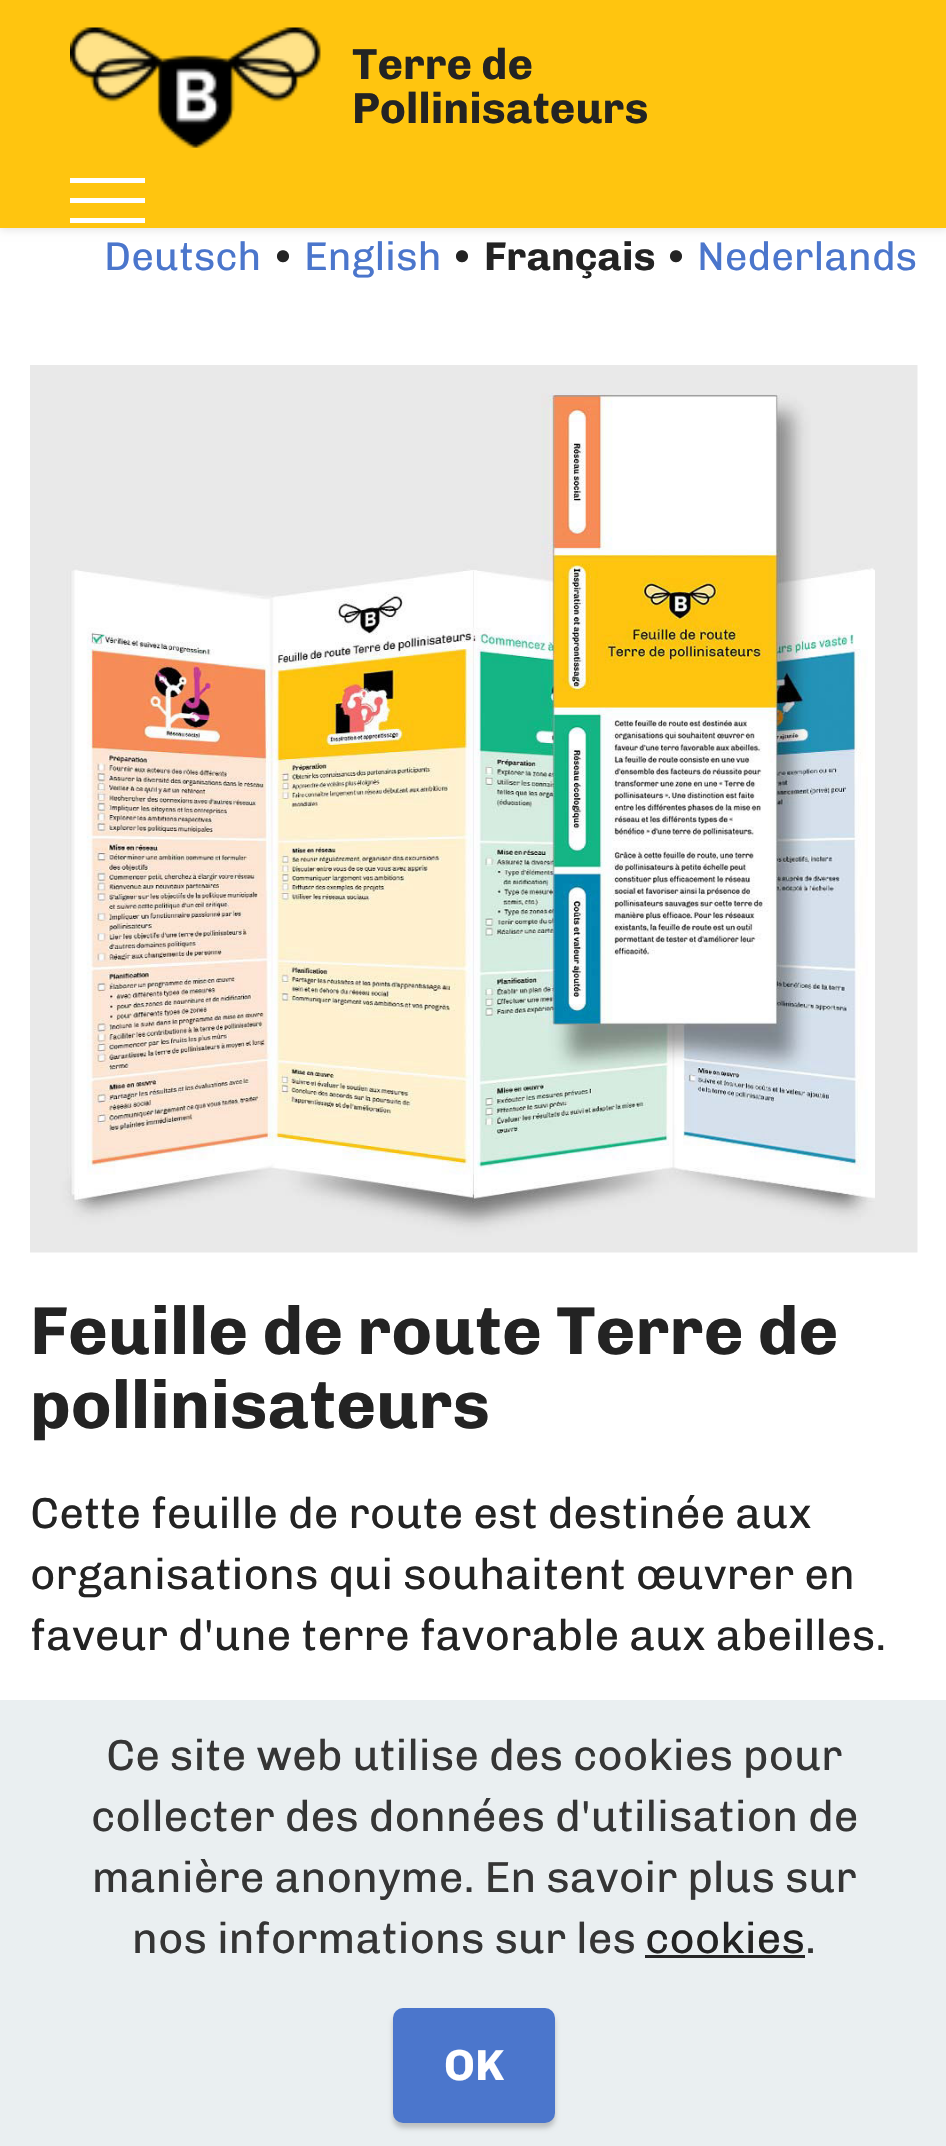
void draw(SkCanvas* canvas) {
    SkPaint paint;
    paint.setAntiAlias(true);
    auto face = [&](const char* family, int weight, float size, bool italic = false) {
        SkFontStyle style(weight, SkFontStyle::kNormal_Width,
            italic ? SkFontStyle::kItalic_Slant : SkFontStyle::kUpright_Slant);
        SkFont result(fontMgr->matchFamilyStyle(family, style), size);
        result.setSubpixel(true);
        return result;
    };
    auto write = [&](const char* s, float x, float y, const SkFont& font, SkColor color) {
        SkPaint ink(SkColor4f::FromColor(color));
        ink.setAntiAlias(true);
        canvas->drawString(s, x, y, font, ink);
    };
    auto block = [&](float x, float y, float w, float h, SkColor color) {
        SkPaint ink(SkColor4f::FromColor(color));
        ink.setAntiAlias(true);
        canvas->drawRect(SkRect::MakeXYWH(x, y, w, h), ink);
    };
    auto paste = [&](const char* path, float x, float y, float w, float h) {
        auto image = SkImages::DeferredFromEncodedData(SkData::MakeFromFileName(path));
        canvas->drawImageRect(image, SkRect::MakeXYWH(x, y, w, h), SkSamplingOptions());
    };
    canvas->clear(SK_ColorWHITE);
    paint.setColor(SkColorSetARGB(26, 0, 0, 0));
    paint.setMaskFilter(SkMaskFilter::MakeBlur(kNormal_SkBlurStyle, 4));
    canvas->drawRect(SkRect::MakeXYWH(0, 3, 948, 227), paint);
    paint.setMaskFilter(nullptr);
    block(0, 0, 946, 228, SkColorSetRGB(255, 197, 15));
    paste("pic1.png", 70, 27, 251, 121);
    auto kFont1 = face("Chivo", 700, 43.5f);
    write("Terre de", 352, 79, kFont1, SkColorSetRGB(35, 35, 35));
    write("Pollinisateurs", 352, 123, kFont1, SkColorSetRGB(35, 35, 35));
    block(70, 178, 75, 5, SK_ColorWHITE);
    block(70, 198, 75, 5, SK_ColorWHITE);
    block(70, 218, 75, 5, SK_ColorWHITE);
    auto kFont2 = face("Chivo", 400, 40);
    write("Deutsch", 104, 270, kFont2, SkColorSetRGB(75, 118, 204));
    write("•", 271, 270, kFont2, SkColorSetRGB(35, 35, 35));
    write("English", 304, 270, kFont2, SkColorSetRGB(75, 118, 204));
    write("•", 450, 270, kFont2, SkColorSetRGB(35, 35, 35));
    auto kFont3 = face("Chivo", 700, 40);
    write("Français", 484, 270, kFont3, SkColorSetRGB(35, 35, 35));
    write("•", 664, 270, kFont2, SkColorSetRGB(35, 35, 35));
    write("Nederlands", 697, 270, kFont2, SkColorSetRGB(75, 118, 204));
    paste("pic2.png", 30, 365, 888, 888);
    auto kFont4 = face("Chivo", 700, 67.9f);
    write("Feuille de route Terre de", 30, 1354, kFont4, SkColorSetRGB(35, 35, 35));
    write("pollinisateurs", 30, 1428, kFont4, SkColorSetRGB(35, 35, 35));
    auto kFont5 = face("Chivo", 400, 43.5f);
    write("Cette feuille de route est destinée aux", 30, 1528, kFont5, SkColorSetRGB(35, 35, 35));
    write("organisations qui souhaitent œuvrer en", 30, 1589, kFont5, SkColorSetRGB(35, 35, 35));
    write("faveur d'une terre favorable aux abeilles.", 30, 1650, kFont5, SkColorSetRGB(35, 35, 35));
    block(0, 1700, 946, 446, SkColorSetARGB(252, 234, 239, 241));
    write("Ce site web utilise des cookies pour", 106, 1770, kFont5, SkColorSetRGB(53, 53, 53));
    write("collecter des données d'utilisation de", 91, 1831, kFont5, SkColorSetRGB(53, 53, 53));
    write("manière anonyme. En savoir plus sur", 92, 1892, kFont5, SkColorSetRGB(53, 53, 53));
    write("nos informations sur les", 132, 1953, kFont5, SkColorSetRGB(53, 53, 53));
    write("cookies", 645, 1953, kFont5, SkColorSetRGB(35, 35, 35));
    block(645, 1955, 160, 3, SkColorSetRGB(39, 39, 39));
    write(".", 805, 1953, kFont5, SkColorSetRGB(53, 53, 53));
    paint.setColor(SkColorSetARGB(51, 0, 0, 0));
    paint.setMaskFilter(SkMaskFilter::MakeBlur(kNormal_SkBlurStyle, 2.5f));
    canvas->drawRoundRect(SkRect::MakeXYWH(393, 2013, 162, 115), 10, 10, paint);
    paint.setMaskFilter(nullptr);
    paint.setColor(SkColorSetRGB(75, 118, 204));
    canvas->drawRoundRect(SkRect::MakeXYWH(394.5f, 2009.5f, 159, 112), 8.5f, 8.5f, paint);
    paint.setStyle(SkPaint::kStroke_Style);
    paint.setStrokeWidth(3);
    canvas->drawRoundRect(SkRect::MakeXYWH(394.5f, 2009.5f, 159, 112), 8.5f, 8.5f, paint);
    write("OK", 444, 2080, kFont1, SK_ColorWHITE);
}
